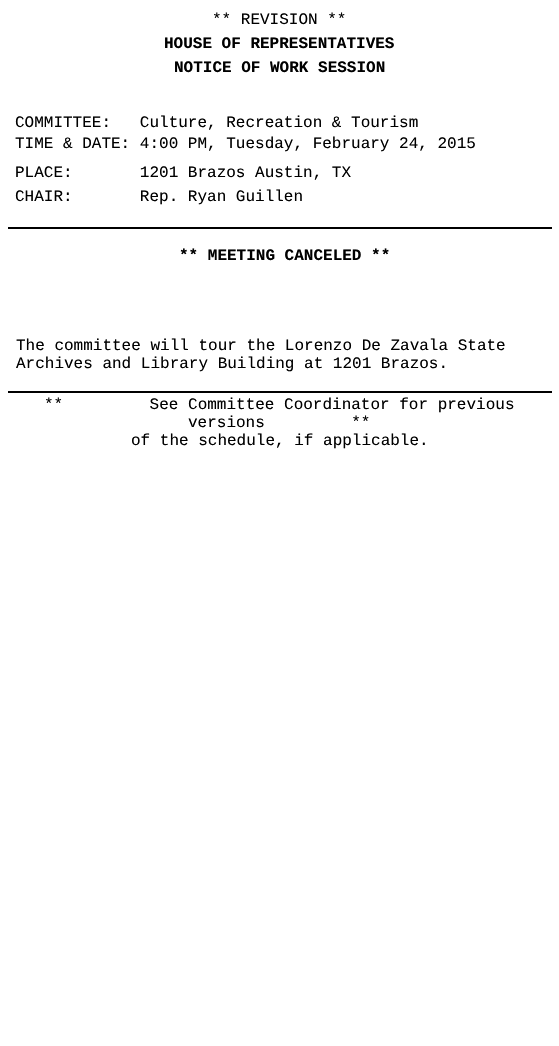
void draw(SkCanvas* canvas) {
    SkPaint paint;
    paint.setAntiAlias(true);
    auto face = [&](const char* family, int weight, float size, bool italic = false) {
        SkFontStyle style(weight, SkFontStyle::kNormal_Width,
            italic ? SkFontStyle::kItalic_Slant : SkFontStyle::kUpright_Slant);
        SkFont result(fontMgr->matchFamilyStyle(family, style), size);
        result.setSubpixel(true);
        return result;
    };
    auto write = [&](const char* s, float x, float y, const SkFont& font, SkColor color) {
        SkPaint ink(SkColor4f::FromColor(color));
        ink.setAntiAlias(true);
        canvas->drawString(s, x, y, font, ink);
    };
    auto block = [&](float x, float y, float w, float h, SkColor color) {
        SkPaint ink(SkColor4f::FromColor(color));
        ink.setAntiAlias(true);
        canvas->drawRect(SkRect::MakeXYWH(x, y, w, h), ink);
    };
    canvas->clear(SK_ColorWHITE);
    auto kFont1 = face("Liberation Mono", 400, 16);
    write("** REVISION **", 212, 24, kFont1, SK_ColorBLACK);
    auto kFont2 = face("Liberation Mono", 700, 16);
    write("HOUSE OF REPRESENTATIVES", 164, 48, kFont2, SK_ColorBLACK);
    write("NOTICE OF WORK SESSION", 174, 72, kFont2, SK_ColorBLACK);
    write("COMMITTEE:   Culture, Recreation & Tourism", 15, 127, kFont1, SK_ColorBLACK);
    write("TIME & DATE: 4:00 PM, Tuesday, February 24, 2015", 15, 148, kFont1, SK_ColorBLACK);
    write("PLACE:       1201 Brazos Austin, TX", 15, 177, kFont1, SK_ColorBLACK);
    write("CHAIR:       Rep. Ryan Guillen", 15, 201, kFont1, SK_ColorBLACK);
    block(8, 227, 544, 2, SK_ColorBLACK);
    write("** MEETING CANCELED **", 179, 260, kFont2, SK_ColorBLACK);
    block(8, 391, 544, 2, SK_ColorBLACK);
    write("The committee will tour the Lorenzo De Zavala State", 16, 350, kFont1, SK_ColorBLACK);
    write("Archives and Library Building at 1201 Brazos.", 16, 368, kFont1, SK_ColorBLACK);
    write("**         See Committee Coordinator for previous", 44, 409, kFont1, SK_ColorBLACK);
    write("versions         **", 188, 427, kFont1, SK_ColorBLACK);
    write("of the schedule, if applicable.", 131, 445, kFont1, SK_ColorBLACK);
}
